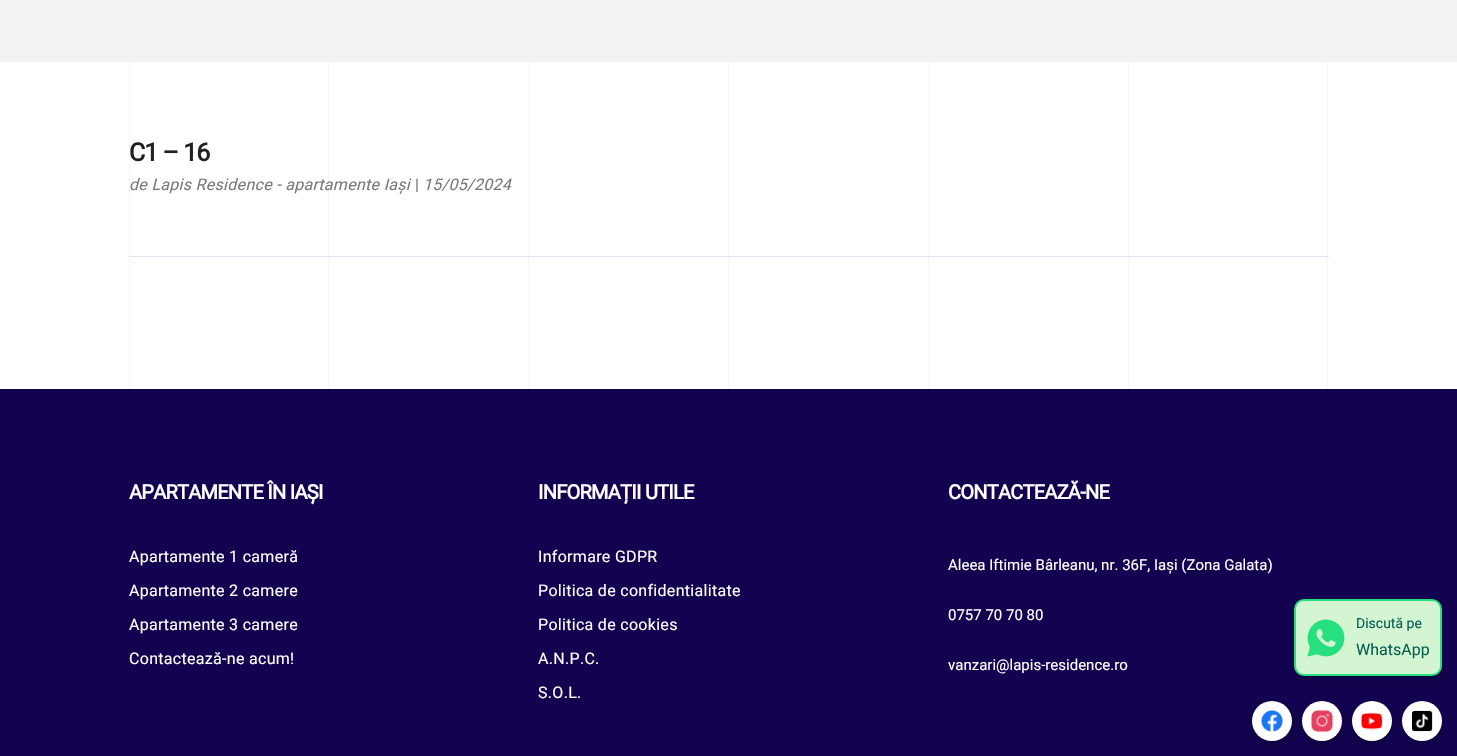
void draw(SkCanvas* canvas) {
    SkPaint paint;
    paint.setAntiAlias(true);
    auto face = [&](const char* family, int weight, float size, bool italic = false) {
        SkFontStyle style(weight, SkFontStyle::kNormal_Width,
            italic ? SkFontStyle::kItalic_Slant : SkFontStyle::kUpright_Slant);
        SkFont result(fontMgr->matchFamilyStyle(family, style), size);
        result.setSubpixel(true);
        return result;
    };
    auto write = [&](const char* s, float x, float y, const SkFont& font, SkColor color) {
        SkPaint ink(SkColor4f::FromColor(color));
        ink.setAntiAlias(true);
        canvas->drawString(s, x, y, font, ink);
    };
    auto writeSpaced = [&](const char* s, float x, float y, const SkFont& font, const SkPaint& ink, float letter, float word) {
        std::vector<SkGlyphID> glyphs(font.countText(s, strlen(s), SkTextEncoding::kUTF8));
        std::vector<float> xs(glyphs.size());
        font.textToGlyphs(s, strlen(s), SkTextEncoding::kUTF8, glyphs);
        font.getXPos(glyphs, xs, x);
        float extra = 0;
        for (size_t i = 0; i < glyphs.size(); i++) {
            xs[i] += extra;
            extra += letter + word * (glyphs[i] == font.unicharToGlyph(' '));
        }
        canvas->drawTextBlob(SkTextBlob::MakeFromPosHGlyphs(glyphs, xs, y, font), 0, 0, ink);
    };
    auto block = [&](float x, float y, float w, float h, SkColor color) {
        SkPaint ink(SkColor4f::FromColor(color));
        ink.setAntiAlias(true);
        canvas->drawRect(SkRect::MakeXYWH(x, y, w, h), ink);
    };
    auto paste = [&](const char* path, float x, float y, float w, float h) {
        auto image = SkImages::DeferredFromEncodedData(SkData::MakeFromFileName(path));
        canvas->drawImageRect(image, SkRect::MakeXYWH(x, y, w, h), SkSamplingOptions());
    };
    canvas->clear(SK_ColorWHITE);
    block(0, 0, 1457, 62, SkColorSetRGB(243, 243, 243));
    block(129, 62, 1, 327, SkColorSetRGB(244, 245, 250));
    block(328, 62, 1, 327, SkColorSetRGB(244, 245, 250));
    block(528, 62, 1, 327, SkColorSetRGB(244, 245, 250));
    block(728, 62, 1, 327, SkColorSetRGB(244, 245, 250));
    block(928, 62, 1, 327, SkColorSetRGB(244, 245, 250));
    block(1327, 62, 1, 327, SkColorSetRGB(244, 245, 250));
    block(1128, 62, 1, 327, SkColorSetRGB(244, 245, 250));
    auto kFont1 = face("Roboto", 700, 25);
    paint.setColor(SkColorSetRGB(32, 32, 32));
    writeSpaced("C1 – 16", 129, 161, kFont1, paint, -1, 0);
    auto kFont2 = face("Roboto", 400, 16, true);
    paint.setColor(SkColorSetRGB(121, 121, 121));
    writeSpaced("de Lapis Residence - apartamente Iași", 129, 190, kFont2, paint, 0.3f, 0);
    auto kFont3 = face("Roboto", 400, 16);
    writeSpaced("|", 415, 190, kFont3, paint, 0.3f, 0);
    writeSpaced("15/05/2024", 423, 190, kFont2, paint, 0.3f, 0);
    block(129, 256, 1200, 1, SkColorSetRGB(224, 228, 242));
    block(0, 389, 1457, 367, SkColorSetRGB(18, 2, 79));
    auto kFont4 = face("Roboto", 700, 20);
    paint.setColor(SK_ColorWHITE);
    writeSpaced("APARTAMENTE ÎN IAȘI", 129, 499, kFont4, paint, -0.75f, 0);
    writeSpaced("Apartamente 1 cameră", 129, 562, kFont3, paint, 0.3f, 0);
    writeSpaced("Apartamente 2 camere", 129, 596, kFont3, paint, 0.3f, 0);
    writeSpaced("Apartamente 3 camere", 129, 630, kFont3, paint, 0.3f, 0);
    writeSpaced("Contactează-ne acum!", 129, 664, kFont3, paint, 0.3f, 0);
    writeSpaced("INFORMAȚII UTILE", 538, 499, kFont4, paint, -0.75f, 0);
    writeSpaced("Informare GDPR", 538, 562, kFont3, paint, 0.3f, 0);
    writeSpaced("Politica de confidentialitate", 538, 596, kFont3, paint, 0.3f, 0);
    writeSpaced("Politica de cookies", 538, 630, kFont3, paint, 0.3f, 0);
    writeSpaced("A.N.P.C.", 538, 664, kFont3, paint, 0.3f, 0);
    writeSpaced("S.O.L.", 538, 698, kFont3, paint, 0.3f, 0);
    writeSpaced("CONTACTEAZĂ-NE", 948, 499, kFont4, paint, -0.75f, 0);
    auto kFont5 = face("Roboto", 400, 15);
    write("Aleea Iftimie Bârleanu, nr. 36F, Iași (Zona Galata)", 948, 570, kFont5, SK_ColorWHITE);
    write("0757 70 70 80", 948, 620, kFont5, SK_ColorWHITE);
    write("vanzari@lapis-residence.ro", 948, 670, kFont5, SK_ColorWHITE);
    paint.setColor(SkColorSetARGB(51, 0, 0, 0));
    paint.setMaskFilter(SkMaskFilter::MakeBlur(kNormal_SkBlurStyle, 3));
    canvas->drawRoundRect(SkRect::MakeXYWH(1294, 603, 148, 77), 10, 10, paint);
    paint.setMaskFilter(nullptr);
    paint.setColor(SkColorSetRGB(212, 245, 209));
    canvas->drawRoundRect(SkRect::MakeXYWH(1295, 600, 146, 75), 9, 9, paint);
    paint.setStyle(SkPaint::kStroke_Style);
    paint.setStrokeWidth(2);
    paint.setColor(SkColorSetRGB(38, 224, 127));
    canvas->drawRoundRect(SkRect::MakeXYWH(1295, 600, 146, 75), 9, 9, paint);
    paste("pic1.png", 1307, 619, 38, 38);
    auto kFont6 = face("Roboto", 400, 14);
    write("Discută pe", 1356, 628, kFont6, SkColorSetRGB(7, 94, 84));
    write("WhatsApp", 1356, 655, kFont3, SkColorSetRGB(7, 94, 84));
    paint.setStyle(SkPaint::kFill_Style);
    paint.setColor(SkColorSetARGB(51, 0, 0, 0));
    paint.setMaskFilter(SkMaskFilter::MakeBlur(kNormal_SkBlurStyle, 3));
    canvas->drawRoundRect(SkRect::MakeXYWH(1252, 705, 40, 40), 20, 20, paint);
    paint.setMaskFilter(nullptr);
    paint.setColor(SK_ColorWHITE);
    canvas->drawCircle(1272, 721, 20, paint);
    paste("pic2.png", 1261, 710, 23, 22);
    paint.setColor(SkColorSetARGB(51, 0, 0, 0));
    paint.setMaskFilter(SkMaskFilter::MakeBlur(kNormal_SkBlurStyle, 3));
    canvas->drawRoundRect(SkRect::MakeXYWH(1302, 705, 40, 40), 20, 20, paint);
    paint.setMaskFilter(nullptr);
    paint.setColor(SK_ColorWHITE);
    canvas->drawCircle(1322, 721, 20, paint);
    paste("pic3.png", 1311, 710, 23, 23);
    paint.setColor(SkColorSetARGB(51, 0, 0, 0));
    paint.setMaskFilter(SkMaskFilter::MakeBlur(kNormal_SkBlurStyle, 3));
    canvas->drawRoundRect(SkRect::MakeXYWH(1352, 705, 40, 40), 20, 20, paint);
    paint.setMaskFilter(nullptr);
    paint.setColor(SK_ColorWHITE);
    canvas->drawCircle(1372, 721, 20, paint);
    paste("pic4.png", 1361, 712, 22, 18);
    paint.setColor(SkColorSetARGB(51, 0, 0, 0));
    paint.setMaskFilter(SkMaskFilter::MakeBlur(kNormal_SkBlurStyle, 3));
    canvas->drawRoundRect(SkRect::MakeXYWH(1402, 705, 40, 40), 20, 20, paint);
    paint.setMaskFilter(nullptr);
    paint.setColor(SK_ColorWHITE);
    canvas->drawCircle(1422, 721, 20, paint);
    paste("pic5.png", 1412, 710, 21, 22);
}
